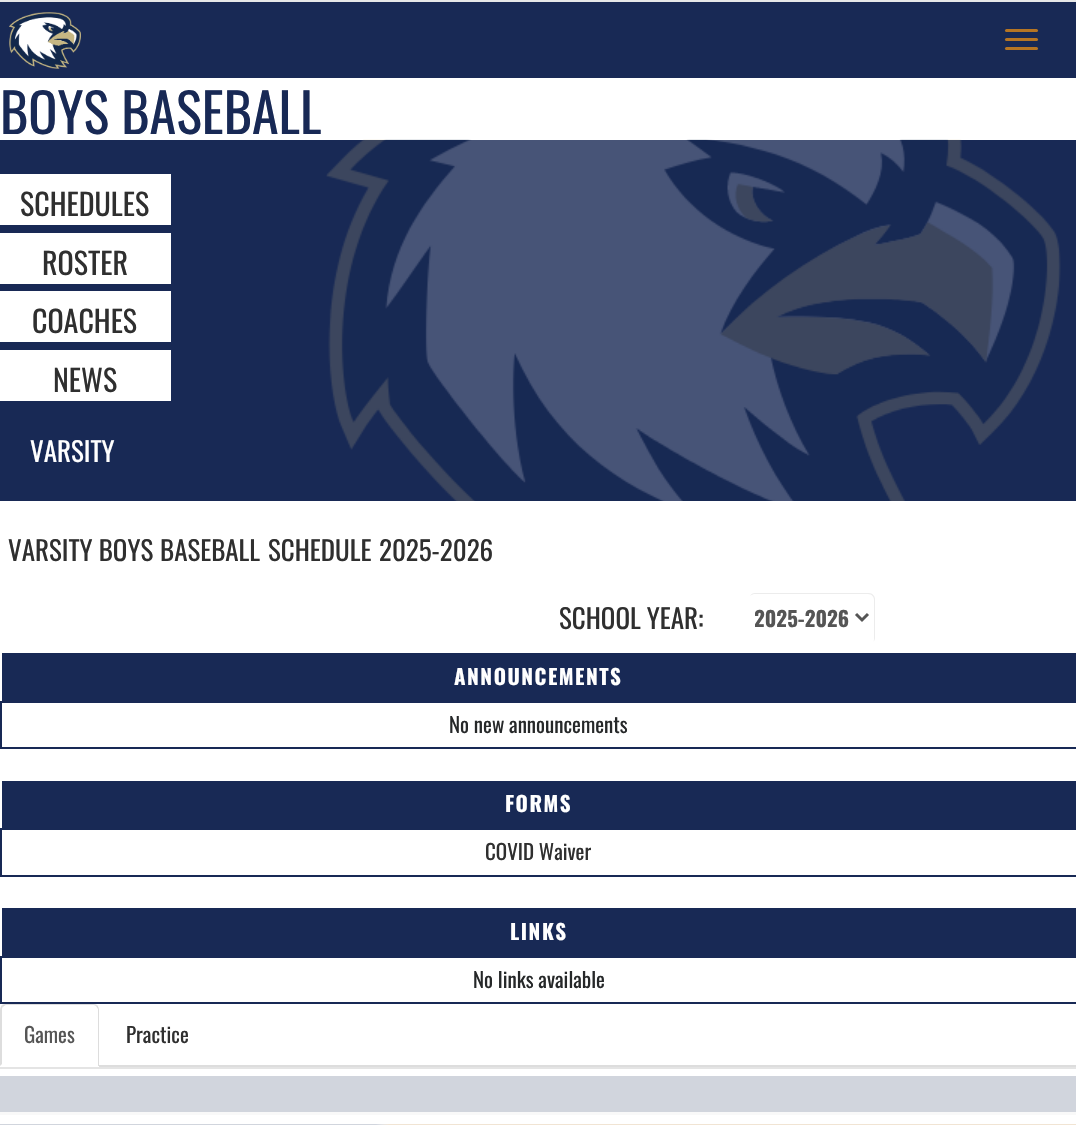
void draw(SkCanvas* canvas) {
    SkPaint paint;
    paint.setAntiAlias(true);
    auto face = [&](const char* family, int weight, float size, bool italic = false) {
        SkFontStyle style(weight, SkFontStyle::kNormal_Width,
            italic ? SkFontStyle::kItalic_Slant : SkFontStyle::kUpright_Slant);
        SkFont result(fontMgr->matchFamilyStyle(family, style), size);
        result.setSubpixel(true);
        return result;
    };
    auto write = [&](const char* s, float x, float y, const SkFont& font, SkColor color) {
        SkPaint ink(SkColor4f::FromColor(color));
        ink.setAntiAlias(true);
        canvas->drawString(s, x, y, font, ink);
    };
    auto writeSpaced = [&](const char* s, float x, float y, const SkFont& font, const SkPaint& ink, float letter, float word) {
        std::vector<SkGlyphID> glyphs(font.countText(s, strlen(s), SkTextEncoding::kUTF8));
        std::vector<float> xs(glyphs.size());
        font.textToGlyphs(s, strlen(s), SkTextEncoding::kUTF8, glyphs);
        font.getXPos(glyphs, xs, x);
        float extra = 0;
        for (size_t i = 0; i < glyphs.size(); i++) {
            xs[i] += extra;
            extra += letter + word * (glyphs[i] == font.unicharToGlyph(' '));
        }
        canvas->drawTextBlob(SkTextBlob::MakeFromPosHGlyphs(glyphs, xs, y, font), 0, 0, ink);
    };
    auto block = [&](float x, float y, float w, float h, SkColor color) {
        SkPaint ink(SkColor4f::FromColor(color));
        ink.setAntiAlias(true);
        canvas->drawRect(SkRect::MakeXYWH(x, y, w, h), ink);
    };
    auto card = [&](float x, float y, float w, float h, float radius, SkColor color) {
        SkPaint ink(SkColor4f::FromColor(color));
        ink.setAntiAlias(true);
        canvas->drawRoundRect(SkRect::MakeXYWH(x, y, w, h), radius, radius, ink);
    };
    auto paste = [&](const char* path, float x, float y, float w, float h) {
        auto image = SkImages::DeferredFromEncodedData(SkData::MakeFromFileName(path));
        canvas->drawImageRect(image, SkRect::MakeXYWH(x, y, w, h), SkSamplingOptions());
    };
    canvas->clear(SK_ColorWHITE);
    block(0, 0, 1076, 2, SkColorSetRGB(230, 231, 232));
    block(0, 2, 1076, 76, SkColorSetRGB(24, 41, 85));
    paste("pic1.png", 9, 12, 72, 57);
    card(1005, 29, 33, 3, 1.5f, SkColorSetRGB(182, 117, 35));
    card(1005, 38, 33, 3, 1.5f, SkColorSetRGB(182, 117, 35));
    card(1005, 47, 33, 3, 1.5f, SkColorSetRGB(182, 117, 35));
    auto kFont1 = face("Oswald", 400, 54);
    write("BOYS BASEBALL", 0, 134, kFont1, SkColorSetRGB(24, 41, 85));
    block(0, 140, 1076, 361, SkColorSetRGB(24, 41, 85));
    paste("pic2.png", 326, 139, 735, 362);
    block(0, 174, 171, 51, SK_ColorWHITE);
    auto kFont2 = face("Oswald", 400, 30);
    write("SCHEDULES", 20, 216, kFont2, SkColorSetRGB(47, 47, 47));
    block(0, 233, 171, 51, SK_ColorWHITE);
    write("ROSTER", 42, 275, kFont2, SkColorSetRGB(47, 47, 47));
    block(0, 291, 171, 51, SK_ColorWHITE);
    write("COACHES", 32, 333, kFont2, SkColorSetRGB(47, 47, 47));
    block(0, 350, 171, 51, SK_ColorWHITE);
    write("NEWS", 53, 392, kFont2, SkColorSetRGB(47, 47, 47));
    auto kFont3 = face("Oswald", 400, 27);
    write("VARSITY", 30, 462, kFont3, SK_ColorWHITE);
    write("VARSITY BOYS", 8, 561, kFont3, SkColorSetRGB(47, 47, 47));
    write("BASEBALL", 160, 561, kFont3, SkColorSetRGB(47, 47, 47));
    write("SCHEDULE", 268, 561, kFont3, SkColorSetRGB(47, 47, 47));
    write("2025-2026", 379, 561, kFont3, SkColorSetRGB(47, 47, 47));
    write("SCHOOL YEAR:", 559, 629, kFont3, SkColorSetRGB(47, 47, 47));
    paint.setColor(SkColorSetRGB(236, 236, 236));
    canvas->drawPath(SkPathBuilder().moveTo(754, 594).lineTo(868, 594).cubicTo(872, 594, 874, 597, 874, 600).lineTo(874, 639).cubicTo(874, 640, 874, 641, 873, 642).cubicTo(874, 641, 875, 640, 875, 638).lineTo(875, 599).cubicTo(875, 596, 872, 593, 869, 593).lineTo(755, 593).cubicTo(753, 593, 751, 594, 750, 596).cubicTo(751, 595, 753, 594, 754, 594).close().detach(), paint);
    paint.setStyle(SkPaint::kStroke_Style);
    paint.setStrokeWidth(3);
    paint.setColor(SkColorSetRGB(85, 85, 85));
    canvas->drawPath(SkPathBuilder().moveTo(856, 614).lineTo(862, 620).lineTo(868, 614).detach(), paint);
    canvas->save();
    canvas->clipRect(SkRect::MakeXYWH(755, 600, 96, 35));
    auto kFont4 = face("Oswald", 700, 21);
    write("2025-2026", 754, 627, kFont4, SkColorSetRGB(85, 85, 85));
    canvas->restore();
    block(2, 653, 1074, 48, SkColorSetRGB(24, 41, 85));
    paint.setStyle(SkPaint::kFill_Style);
    paint.setColor(SK_ColorWHITE);
    writeSpaced("ANNOUNCEMENTS", 454, 685, kFont4, paint, 1.5f, 0);
    block(0, 701, 1076, 2, SkColorSetRGB(24, 41, 85));
    block(0, 747, 1076, 2, SkColorSetRGB(24, 41, 85));
    block(0, 701, 2, 48, SkColorSetRGB(24, 41, 85));
    auto kFont5 = face("Oswald", 400, 21);
    write("No new announcements", 449, 733, kFont5, SkColorSetRGB(38, 40, 41));
    block(2, 781, 1074, 47, SkColorSetRGB(24, 41, 85));
    writeSpaced("FORMS", 505, 812, kFont4, paint, 1.5f, 0);
    block(0, 828, 1076, 2, SkColorSetRGB(24, 41, 85));
    block(0, 875, 1076, 2, SkColorSetRGB(24, 41, 85));
    block(0, 828, 2, 48, SkColorSetRGB(24, 41, 85));
    write("COVID Waiver", 485, 860, kFont5, SkColorSetRGB(47, 47, 47));
    block(2, 908, 1074, 48, SkColorSetRGB(24, 41, 85));
    writeSpaced("LINKS", 510, 940, kFont4, paint, 1.5f, 0);
    block(0, 956, 1076, 2, SkColorSetRGB(24, 41, 85));
    block(0, 1002, 1076, 2, SkColorSetRGB(24, 41, 85));
    block(0, 956, 2, 48, SkColorSetRGB(24, 41, 85));
    write("No links available", 473, 988, kFont5, SkColorSetRGB(38, 40, 41));
    block(99, 1065, 977, 2, SkColorSetRGB(221, 221, 221));
    paint.setColor(SkColorSetRGB(221, 221, 221));
    canvas->drawPath(SkPathBuilder().moveTo(6, 1004).cubicTo(5, 1004, 3, 1004, 2, 1005).lineTo(3, 1007).cubicTo(4, 1006, 5, 1005, 6, 1005).lineTo(93, 1005).cubicTo(94, 1005, 95, 1005, 96, 1006).lineTo(97, 1005).cubicTo(96, 1004, 94, 1004, 93, 1004).close().detach(), paint);
    canvas->drawPath(SkPathBuilder().moveTo(97, 1005).cubicTo(98, 1006, 99, 1008, 99, 1010).lineTo(99, 1066).lineTo(98, 1066).lineTo(98, 1065).lineTo(98, 1009).lineTo(96, 1006).close().detach(), paint);
    canvas->drawPath(SkPathBuilder().moveTo(0, 1010).lineTo(0, 1066).lineTo(2, 1064).lineTo(2, 1010).cubicTo(2, 1009, 2, 1007, 3, 1007).lineTo(2, 1005).cubicTo(1, 1006, 0, 1008, 0, 1010).close().detach(), paint);
    write("Games", 24, 1043, kFont5, SkColorSetRGB(85, 85, 85));
    write("Practice", 126, 1043, kFont5, SkColorSetRGB(47, 47, 47));
    block(0, 1076, 1076, 36, SkColorSetRGB(24, 41, 85));
    block(0, 1112, 1076, 3, SkColorSetRGB(221, 221, 221));
    paint.setColor(SkColorSetRGB(182, 117, 35));
    canvas->drawPath(SkPathBuilder().moveTo(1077, 1124).lineTo(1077, 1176).lineTo(376, 1124).close().detach(), paint);
    paint.setColor(SkColorSetRGB(24, 41, 85));
    canvas->drawPath(SkPathBuilder().moveTo(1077, 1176).lineTo(0, 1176).lineTo(0, 1124).lineTo(376, 1124).close().detach(), paint);
    block(0, 1076, 1076, 49, SkColorSetARGB(204, 255, 255, 255));
    paint.setStyle(SkPaint::kStroke_Style);
    paint.setStrokeWidth(2);
    paint.setColor(SkColorSetRGB(228, 228, 228));
    canvas->drawRect(SkRect::MakeXYWH(-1, 1068, 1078, 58), paint);
}
